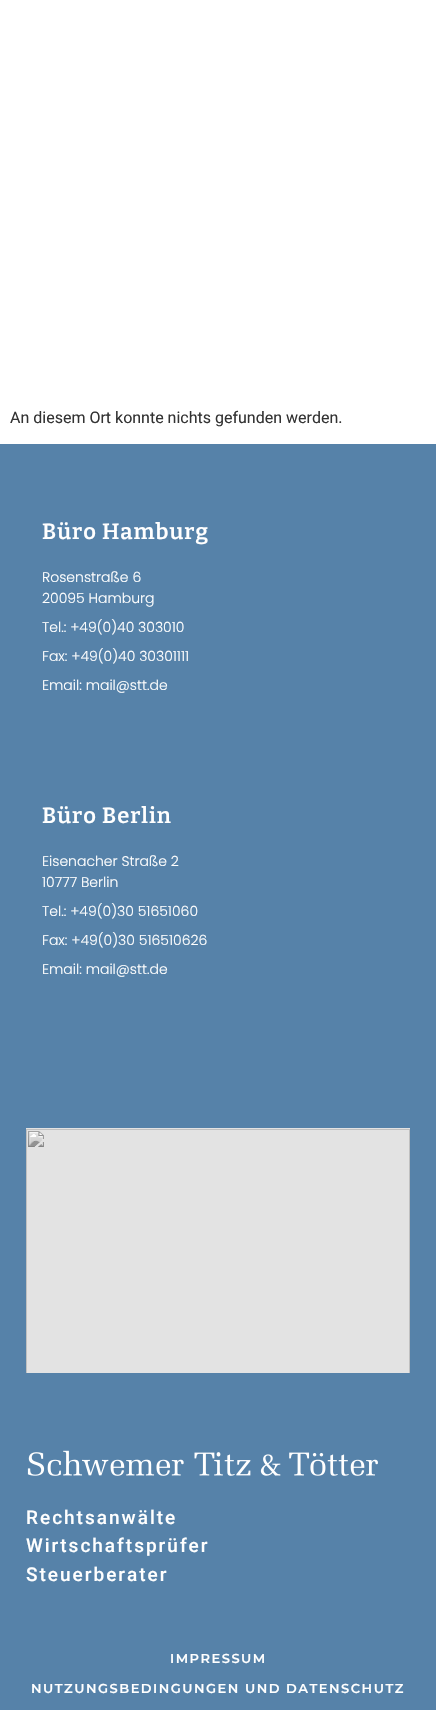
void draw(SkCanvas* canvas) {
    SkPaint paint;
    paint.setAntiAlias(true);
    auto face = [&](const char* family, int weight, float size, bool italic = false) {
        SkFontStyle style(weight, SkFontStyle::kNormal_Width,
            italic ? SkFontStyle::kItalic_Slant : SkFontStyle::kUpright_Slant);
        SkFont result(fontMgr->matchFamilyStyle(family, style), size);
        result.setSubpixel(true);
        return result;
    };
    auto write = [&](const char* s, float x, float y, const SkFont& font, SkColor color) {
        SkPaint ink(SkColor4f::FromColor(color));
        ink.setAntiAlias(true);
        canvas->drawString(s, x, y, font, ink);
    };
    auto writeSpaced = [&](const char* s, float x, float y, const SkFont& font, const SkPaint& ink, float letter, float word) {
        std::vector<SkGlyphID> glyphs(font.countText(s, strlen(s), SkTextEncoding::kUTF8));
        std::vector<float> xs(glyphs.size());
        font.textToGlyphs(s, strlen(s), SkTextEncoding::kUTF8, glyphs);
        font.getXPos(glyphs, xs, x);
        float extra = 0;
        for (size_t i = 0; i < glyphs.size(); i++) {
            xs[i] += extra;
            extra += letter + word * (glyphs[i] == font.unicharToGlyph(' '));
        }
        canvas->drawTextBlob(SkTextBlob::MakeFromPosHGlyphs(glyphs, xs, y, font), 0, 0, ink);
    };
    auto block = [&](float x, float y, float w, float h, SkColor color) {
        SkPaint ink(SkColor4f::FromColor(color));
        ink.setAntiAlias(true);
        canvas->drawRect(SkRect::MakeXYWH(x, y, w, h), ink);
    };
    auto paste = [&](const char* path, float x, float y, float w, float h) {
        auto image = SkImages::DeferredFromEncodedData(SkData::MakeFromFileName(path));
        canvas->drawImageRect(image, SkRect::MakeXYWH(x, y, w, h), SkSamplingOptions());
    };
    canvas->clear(SK_ColorWHITE);
    auto kFont1 = face("Roboto", 400, 16);
    write("An diesem Ort konnte nichts gefunden werden.", 10, 423, kFont1, SkColorSetRGB(51, 51, 51));
    block(0, 444, 436, 1266, SkColorSetRGB(86, 130, 169));
    auto kFont2 = face("Bitter", 600, 22);
    paint.setColor(SK_ColorWHITE);
    writeSpaced("Büro Hamburg", 42, 539, kFont2, paint, 1, 0);
    auto kFont3 = face("Poppins", 300, 14);
    write("Rosenstraße 6", 42, 582, kFont3, SK_ColorWHITE);
    write("20095 Hamburg", 42, 603, kFont3, SK_ColorWHITE);
    write("Tel.: +49(0)40 303010", 42, 632, kFont3, SK_ColorWHITE);
    write("Fax: +49(0)40 30301111", 42, 661, kFont3, SK_ColorWHITE);
    write("Email: mail@stt.de", 42, 690, kFont3, SK_ColorWHITE);
    writeSpaced("Büro Berlin", 42, 823, kFont2, paint, 1, 0);
    write("Eisenacher Straße 2", 42, 866, kFont3, SK_ColorWHITE);
    write("10777 Berlin", 42, 887, kFont3, SK_ColorWHITE);
    write("Tel.: +49(0)30 51651060", 42, 916, kFont3, SK_ColorWHITE);
    write("Fax: +49(0)30 516510626", 42, 945, kFont3, SK_ColorWHITE);
    write("Email: mail@stt.de", 42, 974, kFont3, SK_ColorWHITE);
    paste("pic1.png", 26, 1128, 384, 245);
    paste("pic2.png", 27, 1450, 351, 26);
    auto kFont4 = face("Roboto", 500, 19);
    writeSpaced("Rechtsanwälte", 26, 1524, kFont4, paint, 2, 0);
    writeSpaced("Wirtschaftsprüfer", 26, 1552, kFont4, paint, 2, 0);
    writeSpaced("Steuerberater", 26, 1581, kFont4, paint, 2, 0);
    auto kFont5 = face("Montserrat", 600, 13);
    writeSpaced("IMPRESSUM", 170, 1663, kFont5, paint, 1.5f, 0);
    writeSpaced("NUTZUNGSBEDINGUNGEN UND DATENSCHUTZ", 31, 1693, kFont5, paint, 1.5f, 0);
}
